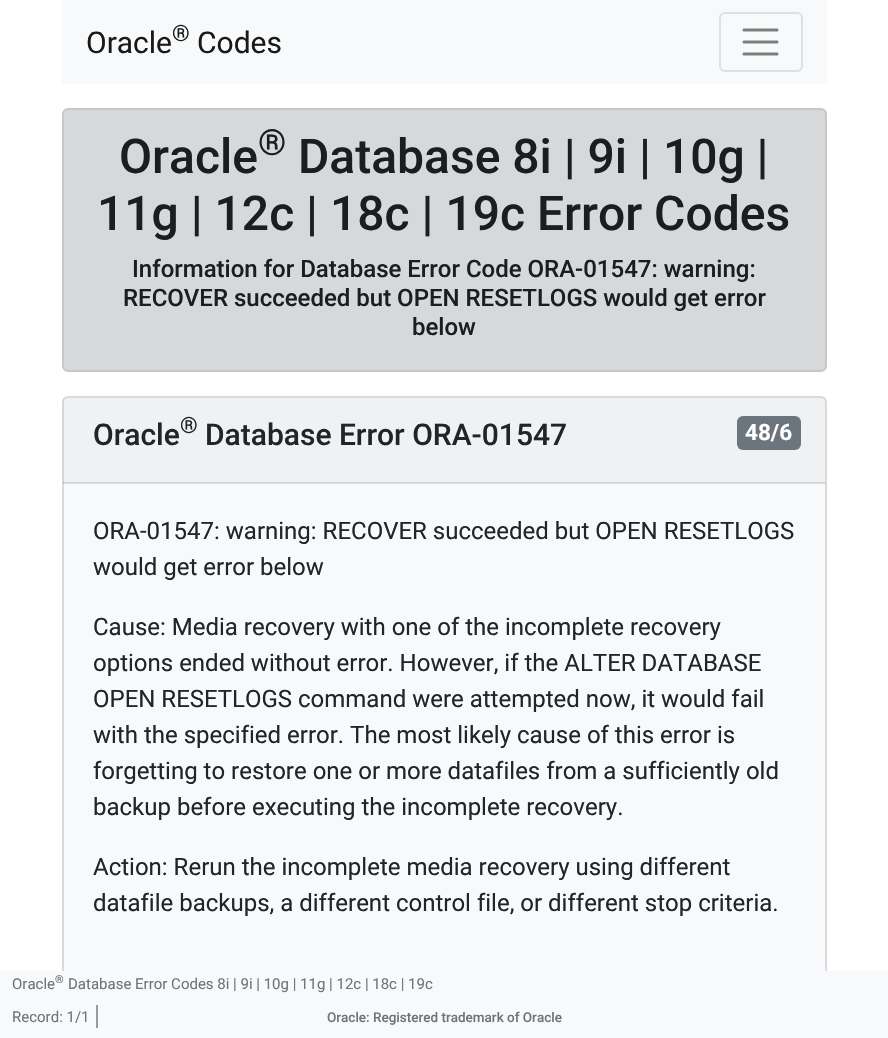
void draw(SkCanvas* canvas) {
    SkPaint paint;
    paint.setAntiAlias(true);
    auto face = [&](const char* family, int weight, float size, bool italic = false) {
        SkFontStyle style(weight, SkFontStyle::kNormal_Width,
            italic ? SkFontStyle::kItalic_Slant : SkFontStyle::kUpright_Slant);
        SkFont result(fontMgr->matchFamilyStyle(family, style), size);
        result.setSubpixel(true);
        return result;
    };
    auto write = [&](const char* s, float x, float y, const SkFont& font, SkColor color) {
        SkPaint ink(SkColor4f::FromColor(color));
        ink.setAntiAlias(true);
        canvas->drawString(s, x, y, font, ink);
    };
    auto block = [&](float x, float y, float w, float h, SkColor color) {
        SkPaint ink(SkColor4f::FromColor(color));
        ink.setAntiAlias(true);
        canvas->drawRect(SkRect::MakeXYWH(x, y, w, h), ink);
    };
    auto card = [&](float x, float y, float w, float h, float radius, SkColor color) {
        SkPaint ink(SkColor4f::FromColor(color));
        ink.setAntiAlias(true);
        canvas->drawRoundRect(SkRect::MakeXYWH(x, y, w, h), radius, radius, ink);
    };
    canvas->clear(SK_ColorWHITE);
    block(62, 0, 765, 84, SkColorSetRGB(248, 249, 250));
    auto kFont1 = face("Roboto", 400, 30);
    write("Oracle", 86, 53, kFont1, SkColorSetRGB(25, 25, 25));
    auto kFont2 = face("Roboto", 400, 22.5f);
    write("®", 172, 41, kFont2, SkColorSetRGB(25, 25, 25));
    write("Codes", 197, 53, kFont1, SkColorSetRGB(25, 25, 25));
    paint.setStyle(SkPaint::kStroke_Style);
    paint.setStrokeWidth(2);
    paint.setColor(SkColorSetRGB(223, 224, 225));
    canvas->drawRoundRect(SkRect::MakeXYWH(720, 13, 82, 58), 5, 5, paint);
    paint.setStrokeWidth(3);
    paint.setStrokeCap(SkPaint::kRound_Cap);
    paint.setColor(SkColorSetRGB(124, 125, 125));
    canvas->drawPath(SkPathBuilder().moveTo(744, 30).lineTo(777, 30).moveTo(744, 42).lineTo(777, 42).moveTo(744, 54).lineTo(777, 54).detach(), paint);
    paint.setStyle(SkPaint::kFill_Style);
    paint.setColor(SkColorSetRGB(214, 216, 217));
    canvas->drawRoundRect(SkRect::MakeXYWH(63, 109, 763, 262), 5, 5, paint);
    paint.setStyle(SkPaint::kStroke_Style);
    paint.setStrokeWidth(2);
    paint.setStrokeCap(SkPaint::kButt_Cap);
    paint.setColor(SkColorSetRGB(198, 200, 202));
    canvas->drawRoundRect(SkRect::MakeXYWH(63, 109, 763, 262), 5, 5, paint);
    auto kFont3 = face("Roboto", 500, 48);
    write("Oracle", 119, 173, kFont3, SkColorSetRGB(27, 30, 33));
    auto kFont4 = face("Roboto", 500, 36);
    write("®", 258, 155, kFont4, SkColorSetRGB(27, 30, 33));
    write("Database 8i | 9i | 10g |", 298, 173, kFont3, SkColorSetRGB(27, 30, 33));
    write("11g | 12c | 18c | 19c Error Codes", 97, 230, kFont3, SkColorSetRGB(27, 30, 33));
    auto kFont5 = face("Roboto", 500, 24);
    write("Information for Database Error Code ORA-01547: warning:", 132, 277, kFont5, SkColorSetRGB(27, 30, 33));
    write("RECOVER succeeded but OPEN RESETLOGS would get error", 123, 306, kFont5, SkColorSetRGB(27, 30, 33));
    write("below", 412, 335, kFont5, SkColorSetRGB(27, 30, 33));
    paint.setStyle(SkPaint::kFill_Style);
    paint.setColor(SkColorSetRGB(248, 249, 250));
    canvas->drawRoundRect(SkRect::MakeXYWH(63, 397, 763, 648), 5, 5, paint);
    paint.setStyle(SkPaint::kStroke_Style);
    paint.setColor(SkColorSetRGB(217, 218, 219));
    canvas->drawRoundRect(SkRect::MakeXYWH(63, 397, 763, 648), 5, 5, paint);
    block(63, 398, 762, 85, SkColorSetARGB(8, 0, 0, 0));
    block(63, 482, 762, 2, SkColorSetARGB(31, 0, 0, 0));
    auto kFont6 = face("Roboto", 500, 30);
    write("Oracle", 93, 445, kFont6, SkColorSetRGB(33, 37, 41));
    auto kFont7 = face("Roboto", 500, 22.5f);
    write("®", 180, 433, kFont7, SkColorSetRGB(33, 37, 41));
    write("Database Error ORA-01547", 205, 445, kFont6, SkColorSetRGB(33, 37, 41));
    card(737, 416, 64, 34, 6, SkColorSetRGB(108, 117, 125));
    auto kFont8 = face("Roboto", 700, 22.5f);
    write("48/6", 745, 440, kFont8, SK_ColorWHITE);
    auto kFont9 = face("Roboto", 400, 24);
    write("ORA-01547: warning: RECOVER succeeded but OPEN RESETLOGS", 93, 539, kFont9, SkColorSetRGB(33, 37, 41));
    write("would get error below", 93, 575, kFont9, SkColorSetRGB(33, 37, 41));
    write("Cause: Media recovery with one of the incomplete recovery", 93, 635, kFont9, SkColorSetRGB(33, 37, 41));
    write("options ended without error. However, if the ALTER DATABASE", 93, 671, kFont9, SkColorSetRGB(33, 37, 41));
    write("OPEN RESETLOGS command were attempted now, it would fail", 93, 707, kFont9, SkColorSetRGB(33, 37, 41));
    write("with the specified error. The most likely cause of this error is", 93, 743, kFont9, SkColorSetRGB(33, 37, 41));
    write("forgetting to restore one or more datafiles from a sufficiently old", 93, 779, kFont9, SkColorSetRGB(33, 37, 41));
    write("backup before executing the incomplete recovery.", 93, 815, kFont9, SkColorSetRGB(33, 37, 41));
    write("Action: Rerun the incomplete media recovery using different", 93, 875, kFont9, SkColorSetRGB(33, 37, 41));
    write("datafile backups, a different control file, or different stop criteria.", 93, 911, kFont9, SkColorSetRGB(33, 37, 41));
    block(0, 971, 888, 67, SkColorSetRGB(248, 249, 250));
    auto kFont10 = face("Roboto", 400, 15);
    write("Oracle", 12, 989, kFont10, SkColorSetRGB(108, 117, 125));
    auto kFont11 = face("Roboto", 400, 11);
    write("®", 55, 983, kFont11, SkColorSetRGB(108, 117, 125));
    write("Database Error Codes 8i | 9i | 10g | 11g | 12c | 18c | 19c", 68, 989, kFont10, SkColorSetRGB(108, 117, 125));
    block(96, 1005, 2, 23, SkColorSetRGB(153, 153, 153));
    write("Record: 1/1", 12, 1022, kFont10, SkColorSetRGB(108, 117, 125));
    auto kFont12 = face("Roboto", 500, 13.5f);
    write("Oracle: Registered trademark of Oracle", 327, 1022, kFont12, SkColorSetRGB(108, 117, 125));
}
